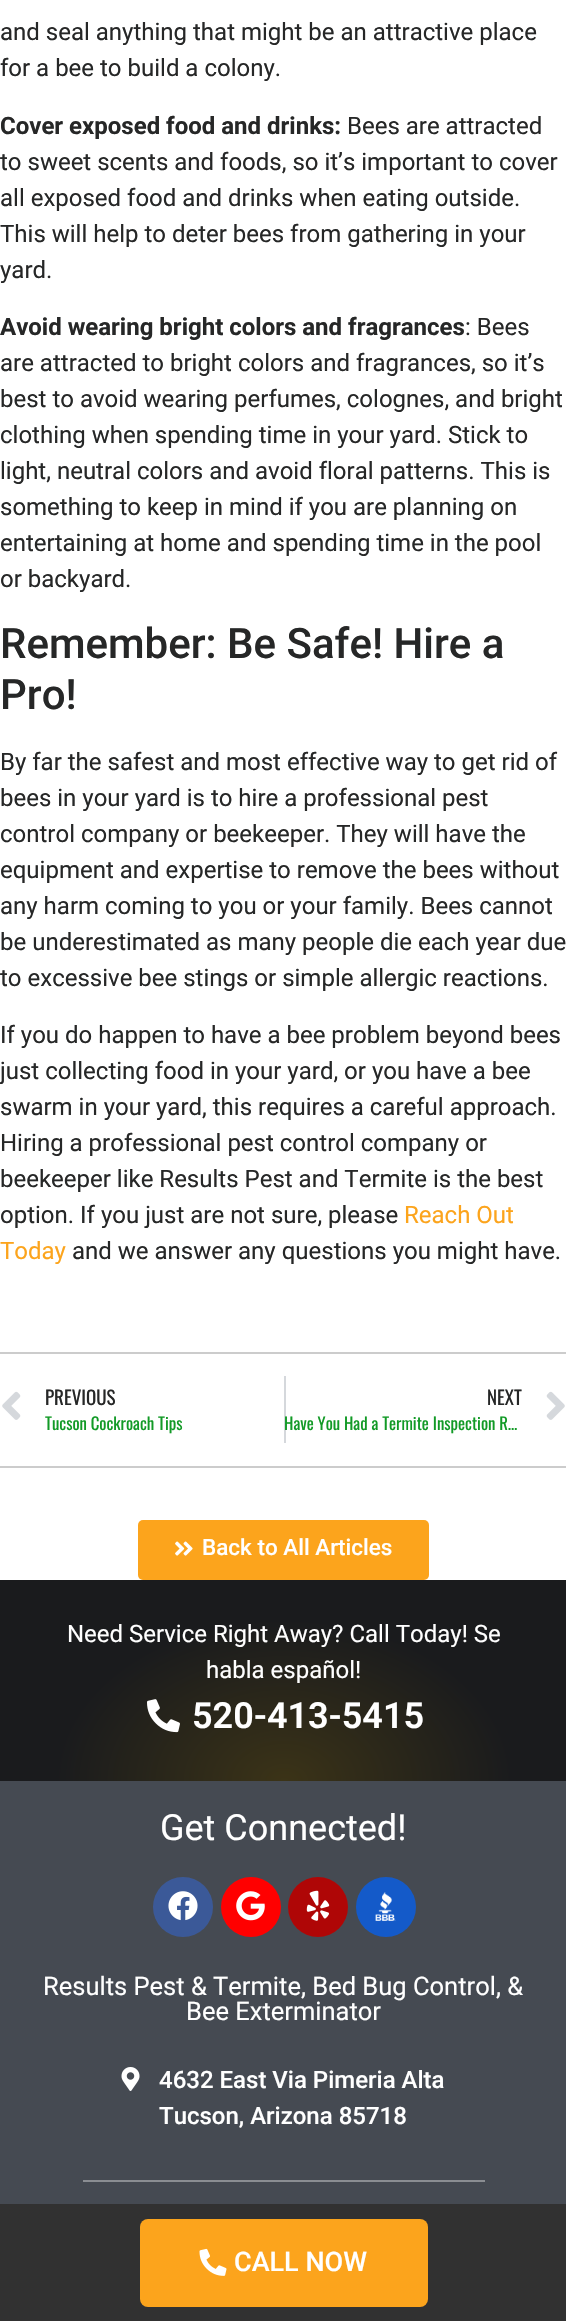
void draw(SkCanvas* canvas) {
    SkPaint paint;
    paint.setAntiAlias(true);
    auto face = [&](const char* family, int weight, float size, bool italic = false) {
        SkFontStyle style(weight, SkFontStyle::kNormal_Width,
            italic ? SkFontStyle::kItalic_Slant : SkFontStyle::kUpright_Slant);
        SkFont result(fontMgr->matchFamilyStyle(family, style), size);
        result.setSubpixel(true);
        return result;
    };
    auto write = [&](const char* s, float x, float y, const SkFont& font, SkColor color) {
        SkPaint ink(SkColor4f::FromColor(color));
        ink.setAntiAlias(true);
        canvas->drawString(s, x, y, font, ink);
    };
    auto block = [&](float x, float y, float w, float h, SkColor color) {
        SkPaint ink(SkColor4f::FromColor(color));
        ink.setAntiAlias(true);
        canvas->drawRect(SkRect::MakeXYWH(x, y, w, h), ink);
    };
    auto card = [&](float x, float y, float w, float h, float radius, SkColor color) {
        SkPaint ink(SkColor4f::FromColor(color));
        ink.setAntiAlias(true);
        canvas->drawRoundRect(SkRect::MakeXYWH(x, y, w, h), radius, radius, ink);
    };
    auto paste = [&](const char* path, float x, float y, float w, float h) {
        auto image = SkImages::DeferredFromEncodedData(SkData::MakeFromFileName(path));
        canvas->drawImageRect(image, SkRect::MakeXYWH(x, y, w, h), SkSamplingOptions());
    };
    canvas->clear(SK_ColorWHITE);
    auto kFont1 = face("Roboto", 400, 24);
    write("and seal anything that might be an attractive place", 0, 40, kFont1, SkColorSetRGB(38, 39, 39));
    write("for a bee to build a colony.", 0, 76, kFont1, SkColorSetRGB(38, 39, 39));
    auto kFont2 = face("Roboto", 700, 24);
    write("Cover exposed food and drinks:", 0, 134, kFont2, SkColorSetRGB(38, 39, 39));
    write("Bees are attracted", 347, 134, kFont1, SkColorSetRGB(38, 39, 39));
    write("to sweet scents and foods, so it’s important to cover", 0, 170, kFont1, SkColorSetRGB(38, 39, 39));
    write("all exposed food and drinks when eating outside.", 0, 206, kFont1, SkColorSetRGB(38, 39, 39));
    write("This will help to deter bees from gathering in your", 0, 242, kFont1, SkColorSetRGB(38, 39, 39));
    write("yard.", 0, 278, kFont1, SkColorSetRGB(38, 39, 39));
    write("Avoid wearing bright colors and fragrances", 0, 335, kFont2, SkColorSetRGB(38, 39, 39));
    write(": Bees", 465, 335, kFont1, SkColorSetRGB(38, 39, 39));
    write("are attracted to bright colors and fragrances, so it’s", 0, 371, kFont1, SkColorSetRGB(38, 39, 39));
    write("best to avoid wearing perfumes, colognes, and bright", 0, 407, kFont1, SkColorSetRGB(38, 39, 39));
    write("clothing when spending time in your yard. Stick to", 0, 443, kFont1, SkColorSetRGB(38, 39, 39));
    write("light, neutral colors and avoid floral patterns. This is", 0, 479, kFont1, SkColorSetRGB(38, 39, 39));
    write("something to keep in mind if you are planning on", 0, 515, kFont1, SkColorSetRGB(38, 39, 39));
    write("entertaining at home and spending time in the pool", 0, 551, kFont1, SkColorSetRGB(38, 39, 39));
    write("or backyard.", 0, 587, kFont1, SkColorSetRGB(38, 39, 39));
    auto kFont3 = face("Roboto", 500, 42);
    write("Remember: Be Safe! Hire a", 0, 658, kFont3, SkColorSetRGB(38, 39, 39));
    write("Pro!", 0, 709, kFont3, SkColorSetRGB(38, 39, 39));
    write("By far the safest and most effective way to get rid of", 0, 770, kFont1, SkColorSetRGB(38, 39, 39));
    write("bees in your yard is to hire a professional pest", 0, 806, kFont1, SkColorSetRGB(38, 39, 39));
    write("control company or beekeeper. They will have the", 0, 842, kFont1, SkColorSetRGB(38, 39, 39));
    write("equipment and expertise to remove the bees without", 0, 878, kFont1, SkColorSetRGB(38, 39, 39));
    write("any harm coming to you or your family. Bees cannot", 0, 914, kFont1, SkColorSetRGB(38, 39, 39));
    write("be underestimated as many people die each year due", 0, 950, kFont1, SkColorSetRGB(38, 39, 39));
    write("to excessive bee stings or simple allergic reactions.", 0, 986, kFont1, SkColorSetRGB(38, 39, 39));
    write("If you do happen to have a bee problem beyond bees", 0, 1043, kFont1, SkColorSetRGB(38, 39, 39));
    write("just collecting food in your yard, or you have a bee", 0, 1079, kFont1, SkColorSetRGB(38, 39, 39));
    write("swarm in your yard, this requires a careful approach.", 0, 1115, kFont1, SkColorSetRGB(38, 39, 39));
    write("Hiring a professional pest control company or", 0, 1151, kFont1, SkColorSetRGB(38, 39, 39));
    write("beekeeper like Results Pest and Termite is the best", 0, 1187, kFont1, SkColorSetRGB(38, 39, 39));
    write("option. If you just are not sure, please", 0, 1223, kFont1, SkColorSetRGB(38, 39, 39));
    write("Reach Out", 404, 1223, kFont1, SkColorSetRGB(252, 164, 28));
    write("Today", 0, 1259, kFont1, SkColorSetRGB(252, 164, 28));
    write("and we answer any questions you might have.", 72, 1259, kFont1, SkColorSetRGB(38, 39, 39));
    block(0, 1352, 566, 2, SkColorSetRGB(204, 204, 204));
    paste("pic1.png", 2, 1391, 19, 29);
    auto kFont4 = face("Oswald", 400, 19);
    write("PREVIOUS", 45, 1405, kFont4, SkColorSetRGB(38, 39, 39));
    auto kFont5 = face("Oswald", 400, 16.75f);
    write("Tucson Cockroach Tips", 45, 1430, kFont5, SkColorSetRGB(18, 154, 38));
    block(284, 1376, 2, 67, SkColorSetRGB(213, 216, 220));
    write("NEXT", 487, 1405, kFont4, SkColorSetRGB(38, 39, 39));
    write("Have You Had a Termite Inspection R…", 284, 1430, kFont5, SkColorSetRGB(18, 154, 38));
    paste("pic2.png", 546, 1391, 19, 29);
    block(0, 1466, 566, 2, SkColorSetRGB(204, 204, 204));
    card(138, 1520, 291, 60, 5, SkColorSetRGB(252, 164, 28));
    paste("pic3.png", 175, 1541, 18, 15);
    auto kFont6 = face("Roboto", 500, 22.5f);
    write("Back to All Articles", 202, 1555, kFont6, SK_ColorWHITE);
    {
        const SkColor colors[] = {SkColorSetRGB(59, 51, 23), SkColorSetRGB(26, 27, 29)};
        const float stops[] = {0, 0.57f};
        SkMatrix m = SkMatrix::Translate(284, 1781).preScale(401, 284);
        paint.setShader(SkGradientShader::MakeRadial({0, 0}, 1, colors, stops, 2, SkTileMode::kClamp, 0, &m));
        paint.setAlpha(255);
    }
    canvas->drawRect(SkRect::MakeXYWH(0, 1580, 566, 201), paint);
    write("Need Service Right Away? Call Today! Se", 67, 1642, kFont1, SK_ColorWHITE);
    write("habla español!", 206, 1678, kFont1, SK_ColorWHITE);
    paste("pic4.png", 147, 1699, 33, 34);
    auto kFont7 = face("Roboto", 600, 36);
    write("520-413-5415", 192, 1728, kFont7, SK_ColorWHITE);
    block(0, 1781, 566, 423, SkColorSetRGB(69, 74, 82));
    auto kFont8 = face("Roboto", 400, 36);
    write("Get Connected!", 160, 1840, kFont8, SK_ColorWHITE);
    paint.setShader(nullptr);
    paint.setColor(SkColorSetRGB(59, 89, 152));
    canvas->drawCircle(183, 1907, 30, paint);
    paste("pic5.png", 168, 1891, 30, 30);
    paint.setColor(SkColorSetRGB(255, 0, 0));
    canvas->drawCircle(251, 1907, 30, paint);
    paste("pic6.png", 236, 1891, 29, 30);
    paint.setColor(SkColorSetRGB(175, 6, 6));
    canvas->drawCircle(318, 1907, 30, paint);
    paste("pic7.png", 306, 1890, 24, 31);
    paint.setColor(SkColorSetRGB(20, 90, 201));
    canvas->drawCircle(386, 1907, 30, paint);
    paste("pic8.png", 375, 1892, 21, 29);
    auto kFont9 = face("Roboto", 400, 25.5f);
    write("Results Pest & Termite, Bed Bug Control, &", 43, 1995, kFont9, SK_ColorWHITE);
    write("Bee Exterminator", 186, 2020, kFont9, SK_ColorWHITE);
    paste("pic9.png", 121, 2067, 19, 24);
    auto kFont10 = face("Roboto", 500, 24);
    write("4632 East Via Pimeria Alta", 159, 2088, kFont10, SK_ColorWHITE);
    write("Tucson, Arizona 85718", 159, 2124, kFont10, SK_ColorWHITE);
    block(83, 2180, 402, 2, SkColorSetRGB(138, 141, 146));
    block(0, 2204, 566, 117, SkColorSetRGB(49, 49, 49));
    card(140, 2219, 288, 88, 8, SkColorSetRGB(252, 164, 28));
    paste("pic10.png", 199, 2248, 28, 28);
    auto kFont11 = face("Roboto", 500, 27);
    write("CALL NOW", 234, 2271, kFont11, SK_ColorWHITE);
}
